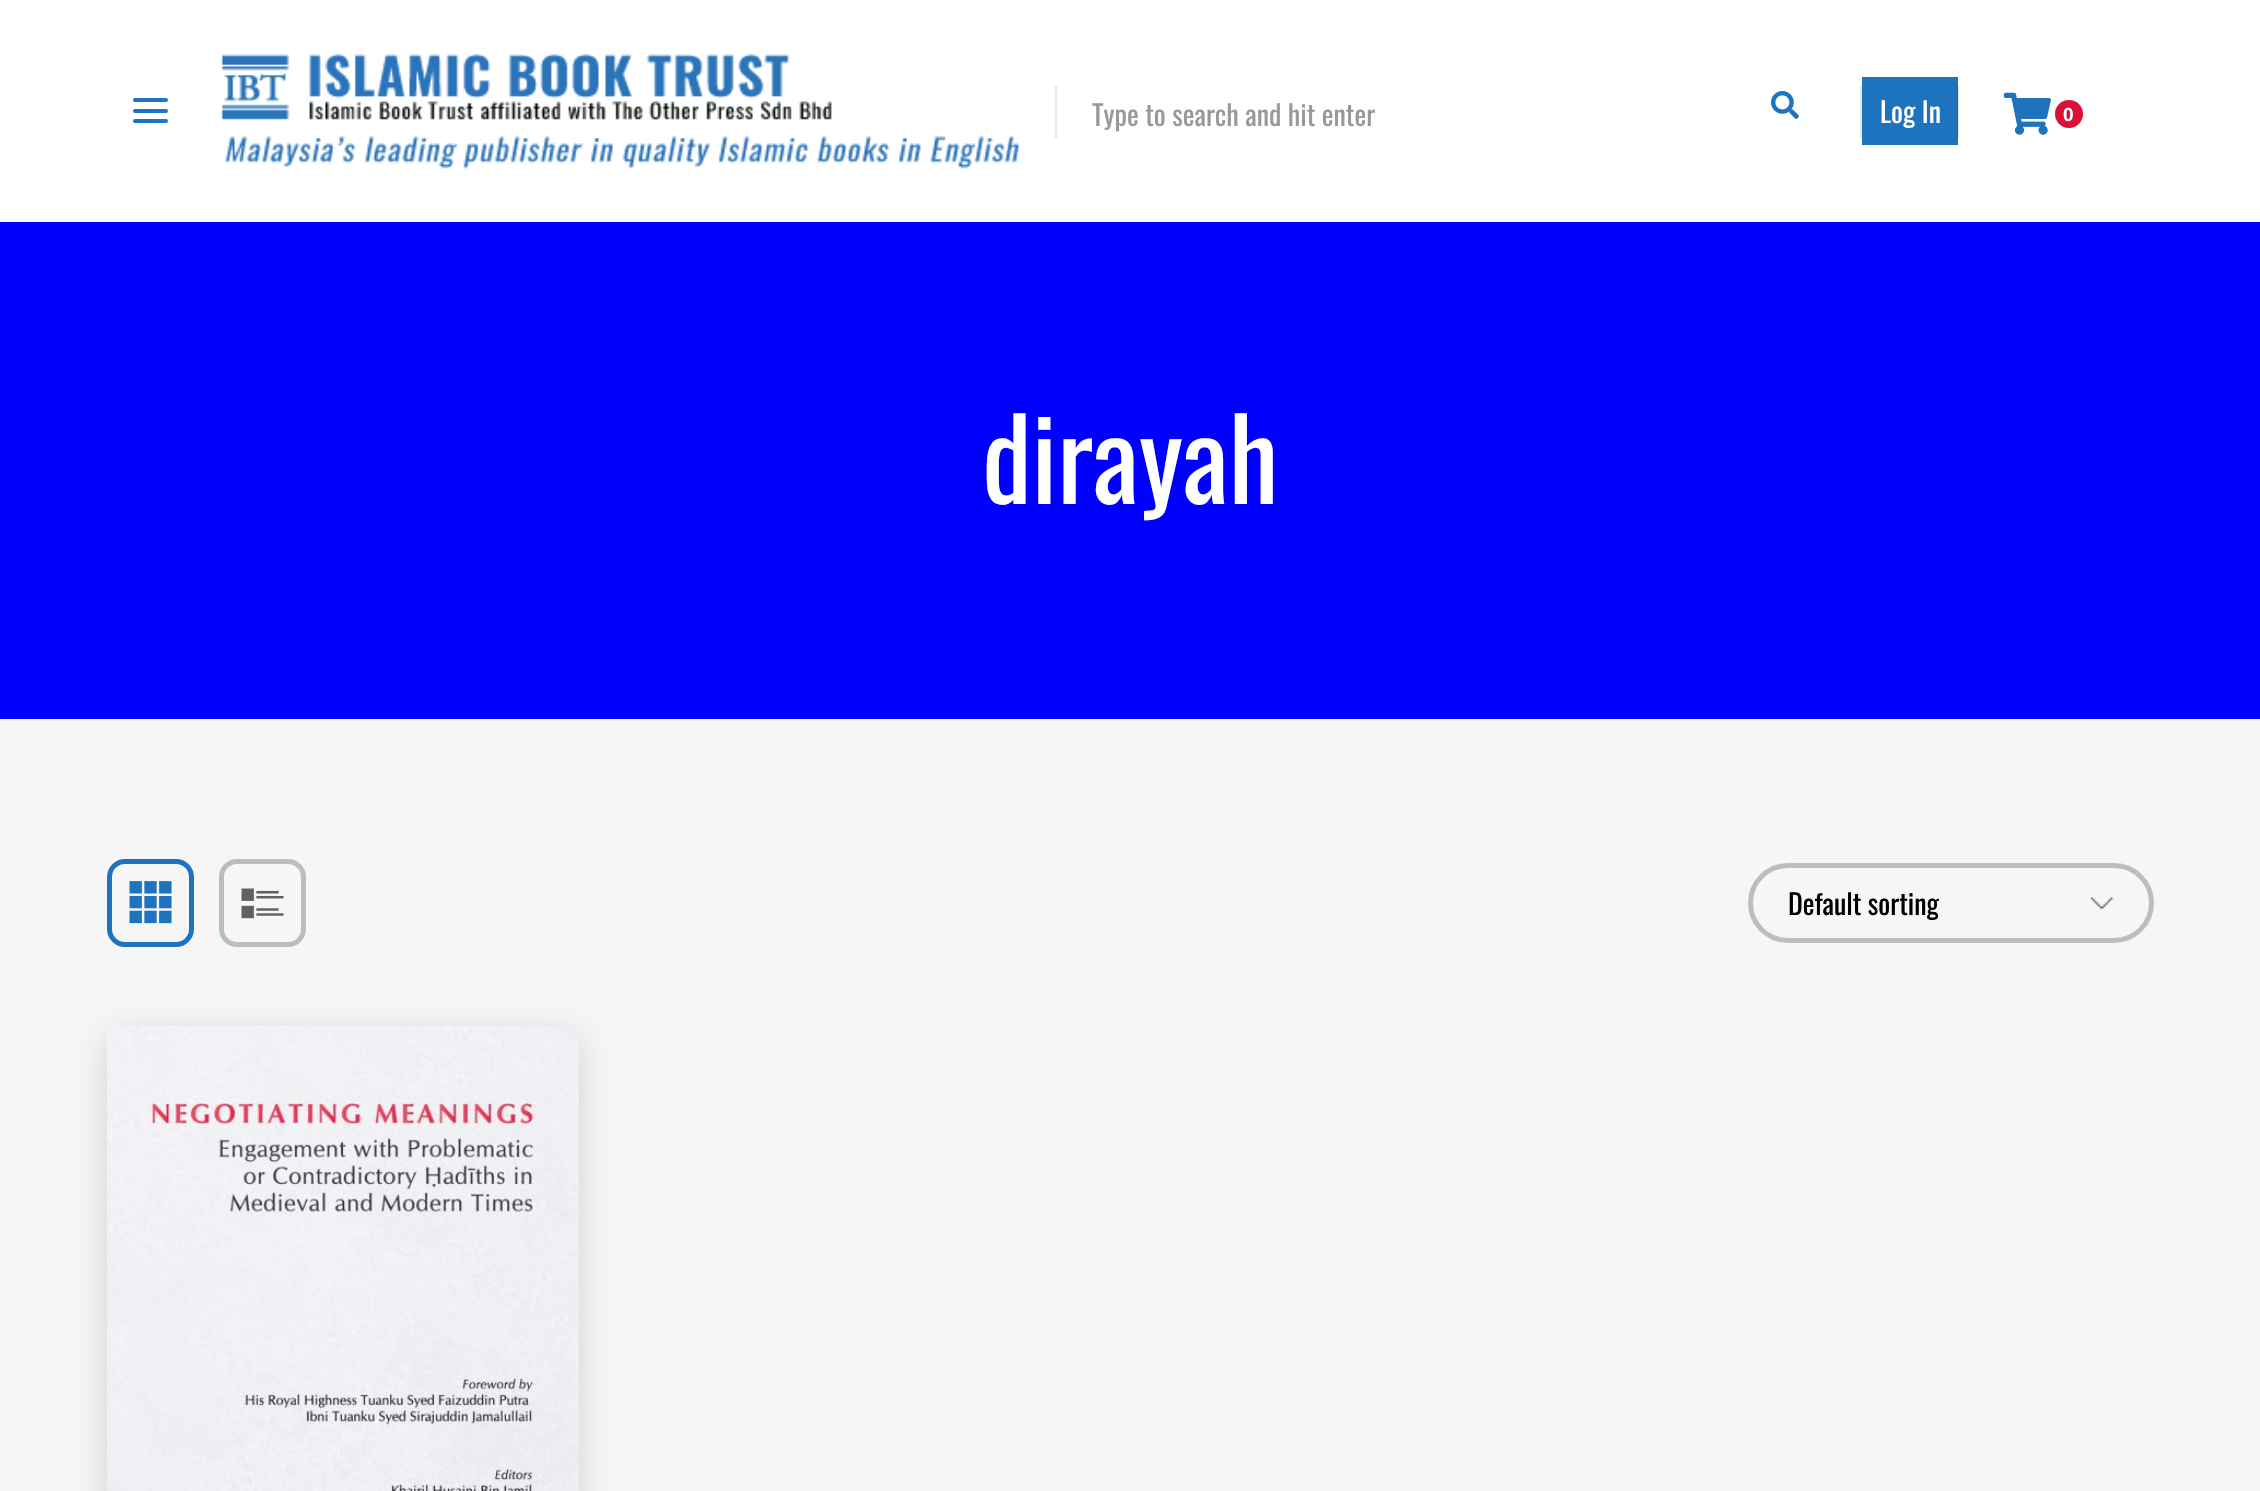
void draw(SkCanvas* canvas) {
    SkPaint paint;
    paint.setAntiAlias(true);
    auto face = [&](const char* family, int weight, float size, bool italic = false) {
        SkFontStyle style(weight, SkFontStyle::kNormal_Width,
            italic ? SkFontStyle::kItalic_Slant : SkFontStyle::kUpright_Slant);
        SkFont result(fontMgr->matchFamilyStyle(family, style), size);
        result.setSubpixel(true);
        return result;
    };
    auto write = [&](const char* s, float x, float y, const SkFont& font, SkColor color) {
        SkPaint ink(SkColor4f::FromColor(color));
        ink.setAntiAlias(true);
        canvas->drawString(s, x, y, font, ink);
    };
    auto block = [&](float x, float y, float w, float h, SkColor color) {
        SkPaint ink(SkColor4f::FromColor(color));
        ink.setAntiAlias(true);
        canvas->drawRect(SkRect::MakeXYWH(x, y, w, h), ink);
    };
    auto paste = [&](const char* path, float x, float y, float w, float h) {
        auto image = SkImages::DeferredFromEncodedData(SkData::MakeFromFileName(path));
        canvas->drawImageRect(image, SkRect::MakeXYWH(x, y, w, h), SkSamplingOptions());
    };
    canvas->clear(SkColorSetRGB(246, 246, 246));
    block(0, 0, 2260, 222, SK_ColorWHITE);
    block(1958, 86, 1, 52, SkColorSetRGB(230, 230, 230));
    {
        const SkColor colors[] = {SkColorSetRGB(25, 118, 210), SkColorSetRGB(30, 115, 190)};
        const float stops[] = {0, 1};
        const SkPoint ends[] = {{168, 110}, {133, 110}};
        paint.setShader(SkGradientShader::MakeLinear(ends, colors, stops, 2, SkTileMode::kClamp));
        paint.setAlpha(255);
    }
    canvas->drawRoundRect(SkRect::MakeXYWH(133, 109, 35, 4), 2, 2, paint);
    {
        const SkColor colors[] = {SkColorSetRGB(25, 118, 210), SkColorSetRGB(30, 115, 190)};
        const float stops[] = {0, 1};
        const SkPoint ends[] = {{168, 100}, {133, 100}};
        paint.setShader(SkGradientShader::MakeLinear(ends, colors, stops, 2, SkTileMode::kClamp));
        paint.setAlpha(255);
    }
    canvas->drawRoundRect(SkRect::MakeXYWH(133, 98, 35, 4), 2, 2, paint);
    {
        const SkColor colors[] = {SkColorSetRGB(25, 118, 210), SkColorSetRGB(30, 115, 190)};
        const float stops[] = {0, 1};
        const SkPoint ends[] = {{168, 121}, {133, 121}};
        paint.setShader(SkGradientShader::MakeLinear(ends, colors, stops, 2, SkTileMode::kClamp));
        paint.setAlpha(255);
    }
    canvas->drawRoundRect(SkRect::MakeXYWH(133, 119, 35, 4), 2, 2, paint);
    paste("pic1.png", 221, 53, 798, 116);
    block(1055, 86, 2, 52, SkColorSetRGB(230, 230, 230));
    auto kFont1 = face("Oswald", 400, 28);
    write("Type to search and hit enter", 1092, 126, kFont1, SkColorSetRGB(153, 153, 153));
    paste("pic2.png", 1771, 91, 28, 28);
    block(1860, 86, 2, 52, SkColorSetRGB(230, 230, 230));
    block(1862, 77, 96, 68, SkColorSetRGB(30, 115, 190));
    block(1957, 86, 1, 52, SkColorSetRGB(27, 104, 171));
    write("Log In", 1880, 123, kFont1, SK_ColorWHITE);
    paste("pic3.png", 2003, 92, 48, 43);
    paint.setShader(nullptr);
    paint.setColor(SkColorSetRGB(219, 16, 55));
    canvas->drawCircle(2069, 114, 14, paint);
    auto kFont2 = face("Liberation Sans", 700, 19);
    write("0", 2063, 121, kFont2, SK_ColorWHITE);
    block(0, 222, 2260, 497, SkColorSetRGB(0, 0, 255));
    auto kFont3 = face("Oswald", 400, 112);
    write("dirayah", 982, 504, kFont3, SK_ColorWHITE);
    paint.setStyle(SkPaint::kStroke_Style);
    paint.setStrokeWidth(5);
    paint.setColor(SkColorSetRGB(30, 115, 190));
    canvas->drawRoundRect(SkRect::MakeXYWH(109.5f, 861.5f, 82, 83), 15.5f, 15.5f, paint);
    paste("pic4.png", 129, 881, 43, 43);
    paint.setColor(SkColorSetRGB(189, 189, 189));
    canvas->drawRoundRect(SkRect::MakeXYWH(221.5f, 861.5f, 82, 83), 15.5f, 15.5f, paint);
    paste("pic5.png", 241, 888, 43, 31);
    paste("pic6.png", 2090, 896, 24, 14);
    canvas->drawRoundRect(SkRect::MakeXYWH(1750.5f, 865.5f, 401, 75), 37.5f, 37.5f, paint);
    write("Default sorting", 1788, 915, kFont1, SK_ColorBLACK);
    paint.setStyle(SkPaint::kFill_Style);
    paint.setColor(SkColorSetARGB(51, 0, 0, 0));
    paint.setMaskFilter(SkMaskFilter::MakeBlur(kNormal_SkBlurStyle, 17.5f));
    canvas->drawRect(SkRect::MakeXYWH(112, 1040, 462, 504), paint);
    paint.setMaskFilter(nullptr);
    paste("pic7.png", 107, 1026, 472, 465);
}
